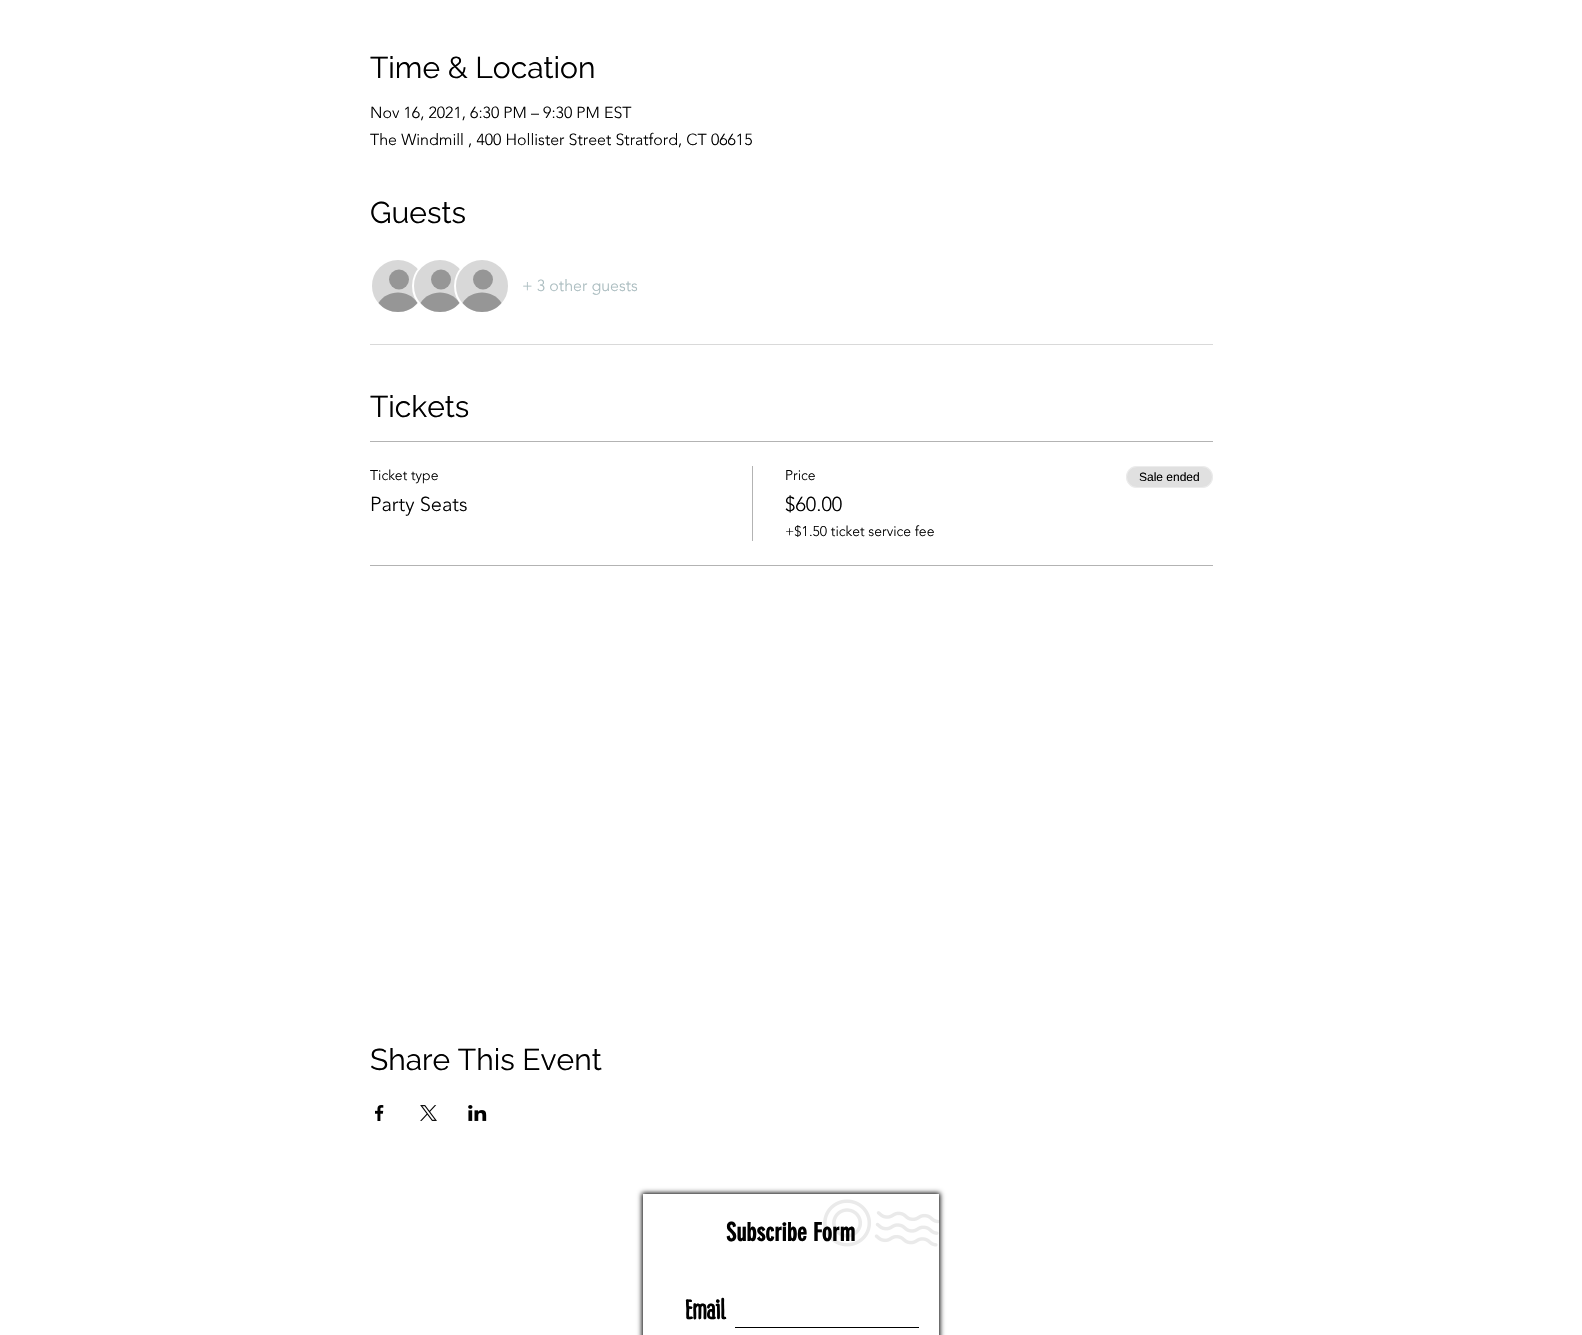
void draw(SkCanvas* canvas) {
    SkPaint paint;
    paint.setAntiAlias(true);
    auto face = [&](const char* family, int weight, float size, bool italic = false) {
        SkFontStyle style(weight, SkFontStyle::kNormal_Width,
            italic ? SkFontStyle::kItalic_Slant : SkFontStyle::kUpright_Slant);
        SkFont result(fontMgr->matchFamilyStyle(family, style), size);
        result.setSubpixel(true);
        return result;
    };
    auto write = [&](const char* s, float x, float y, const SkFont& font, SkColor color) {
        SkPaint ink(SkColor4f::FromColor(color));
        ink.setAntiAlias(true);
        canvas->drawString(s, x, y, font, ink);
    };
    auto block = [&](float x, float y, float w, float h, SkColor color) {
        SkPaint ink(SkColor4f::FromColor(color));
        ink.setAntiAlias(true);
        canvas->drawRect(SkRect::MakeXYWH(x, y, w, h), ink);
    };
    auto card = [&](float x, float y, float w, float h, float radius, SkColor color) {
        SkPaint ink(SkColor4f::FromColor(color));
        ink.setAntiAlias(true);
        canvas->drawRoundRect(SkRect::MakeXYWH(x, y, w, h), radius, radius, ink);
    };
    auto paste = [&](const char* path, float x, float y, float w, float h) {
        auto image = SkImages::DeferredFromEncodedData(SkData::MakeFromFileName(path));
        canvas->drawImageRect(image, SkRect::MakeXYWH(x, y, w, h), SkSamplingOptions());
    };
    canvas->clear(SK_ColorWHITE);
    auto kFont1 = face("Raleway", 400, 30);
    write("Time & Location", 370, 78, kFont1, SK_ColorBLACK);
    auto kFont2 = face("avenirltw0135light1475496", 300, 16);
    write("Nov 16, 2021, 6:30 PM – 9:30 PM EST", 370, 118, kFont2, SK_ColorBLACK);
    write("The Windmill , 400 Hollister Street Stratford, CT 06615", 370, 145, kFont2, SK_ColorBLACK);
    write("Guests", 370, 223, kFont1, SK_ColorBLACK);
    paint.setColor(SkColorSetRGB(216, 216, 216));
    canvas->drawCircle(398, 286, 27, paint);
    paint.setStyle(SkPaint::kStroke_Style);
    paint.setStrokeWidth(2);
    paint.setColor(SK_ColorWHITE);
    canvas->drawCircle(398, 286, 27, paint);
    paint.setStyle(SkPaint::kFill_Style);
    paint.setColor(SkColorSetRGB(150, 150, 150));
    canvas->drawCircle(399, 279.5f, 10, paint);
    canvas->drawPath(SkPathBuilder().moveTo(417.5f, 303).cubicTo(407.5f, 315, 388.5f, 315, 378.5f, 303).cubicTo(387, 289, 409, 289, 417.5f, 303).close().detach(), paint);
    paint.setColor(SkColorSetRGB(216, 216, 216));
    canvas->drawCircle(440, 286, 27, paint);
    paint.setStyle(SkPaint::kStroke_Style);
    paint.setColor(SK_ColorWHITE);
    canvas->drawCircle(440, 286, 27, paint);
    paint.setStyle(SkPaint::kFill_Style);
    paint.setColor(SkColorSetRGB(150, 150, 150));
    canvas->drawCircle(441, 279.5f, 10, paint);
    canvas->drawPath(SkPathBuilder().moveTo(459.5f, 303).cubicTo(449.5f, 315, 430.5f, 315, 420.5f, 303).cubicTo(429, 289, 451, 289, 459.5f, 303).close().detach(), paint);
    paint.setColor(SkColorSetRGB(216, 216, 216));
    canvas->drawCircle(482, 286, 27, paint);
    paint.setStyle(SkPaint::kStroke_Style);
    paint.setColor(SK_ColorWHITE);
    canvas->drawCircle(482, 286, 27, paint);
    paint.setStyle(SkPaint::kFill_Style);
    paint.setColor(SkColorSetRGB(150, 150, 150));
    canvas->drawCircle(483, 279.5f, 10, paint);
    canvas->drawPath(SkPathBuilder().moveTo(501.5f, 303).cubicTo(491.5f, 315, 472.5f, 315, 462.5f, 303).cubicTo(471, 289, 493, 289, 501.5f, 303).close().detach(), paint);
    write("+ 3 other guests", 522, 291, kFont2, SkColorSetRGB(170, 188, 191));
    block(370, 344, 843, 1, SkColorSetRGB(217, 217, 217));
    write("Tickets", 370, 417, kFont1, SK_ColorBLACK);
    block(370, 441, 843, 1, SkColorSetRGB(179, 179, 179));
    block(370, 565, 843, 1, SkColorSetRGB(179, 179, 179));
    auto kFont3 = face("avenirltw0135light1475496", 300, 14);
    write("Ticket type", 370, 480, kFont3, SK_ColorBLACK);
    auto kFont4 = face("avenirltw0135light1475496", 300, 20);
    write("Party Seats", 370, 511, kFont4, SK_ColorBLACK);
    block(752, 466, 1, 75, SkColorSetRGB(179, 179, 179));
    write("Price", 785, 480, kFont3, SK_ColorBLACK);
    write("$60.00", 785, 511, kFont4, SK_ColorBLACK);
    write("+$1.50 ticket service fee", 785, 536, kFont3, SK_ColorBLACK);
    card(1126, 466, 87, 22, 11, SkColorSetRGB(224, 224, 224));
    paint.setStyle(SkPaint::kStroke_Style);
    paint.setStrokeWidth(1);
    paint.setColor(SkColorSetARGB(102, 255, 255, 255));
    canvas->drawRoundRect(SkRect::MakeXYWH(1126.5f, 466.5f, 86, 21), 10.5f, 10.5f, paint);
    auto kFont5 = face("Liberation Sans", 400, 12);
    write("Sale ended", 1139, 481, kFont5, SK_ColorBLACK);
    write("Share This Event", 370, 1070, kFont1, SK_ColorBLACK);
    paste("pic1.png", 375, 1105, 9, 16);
    paste("pic2.png", 420, 1105, 17, 16);
    paste("pic3.png", 468, 1105, 19, 16);
    canvas->save();
    canvas->clipPath(SkPathBuilder(SkPathFillType::kEvenOdd).moveTo(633, 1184).lineTo(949, 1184).lineTo(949, 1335).lineTo(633, 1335).close().moveTo(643, 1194).lineTo(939, 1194).lineTo(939, 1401).lineTo(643, 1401).close().detach(), true);
    paint.setStyle(SkPaint::kFill_Style);
    paint.setColor(SK_ColorBLACK);
    paint.setMaskFilter(SkMaskFilter::MakeBlur(kNormal_SkBlurStyle, 2.5f));
    canvas->drawRect(SkRect::MakeXYWH(642, 1193, 298, 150), paint);
    paint.setMaskFilter(nullptr);
    canvas->restore();
    paste("pic4.png", 823, 1199, 116, 48);
    auto kFont6 = face("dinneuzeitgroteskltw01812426", 700, 25);
    write("Subscribe Form", 726, 1241, kFont6, SK_ColorBLACK);
    auto kFont7 = face("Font", 700, 27);
    write("Email", 685, 1319, kFont7, SK_ColorBLACK);
    block(735, 1327, 184, 1, SK_ColorBLACK);
}
